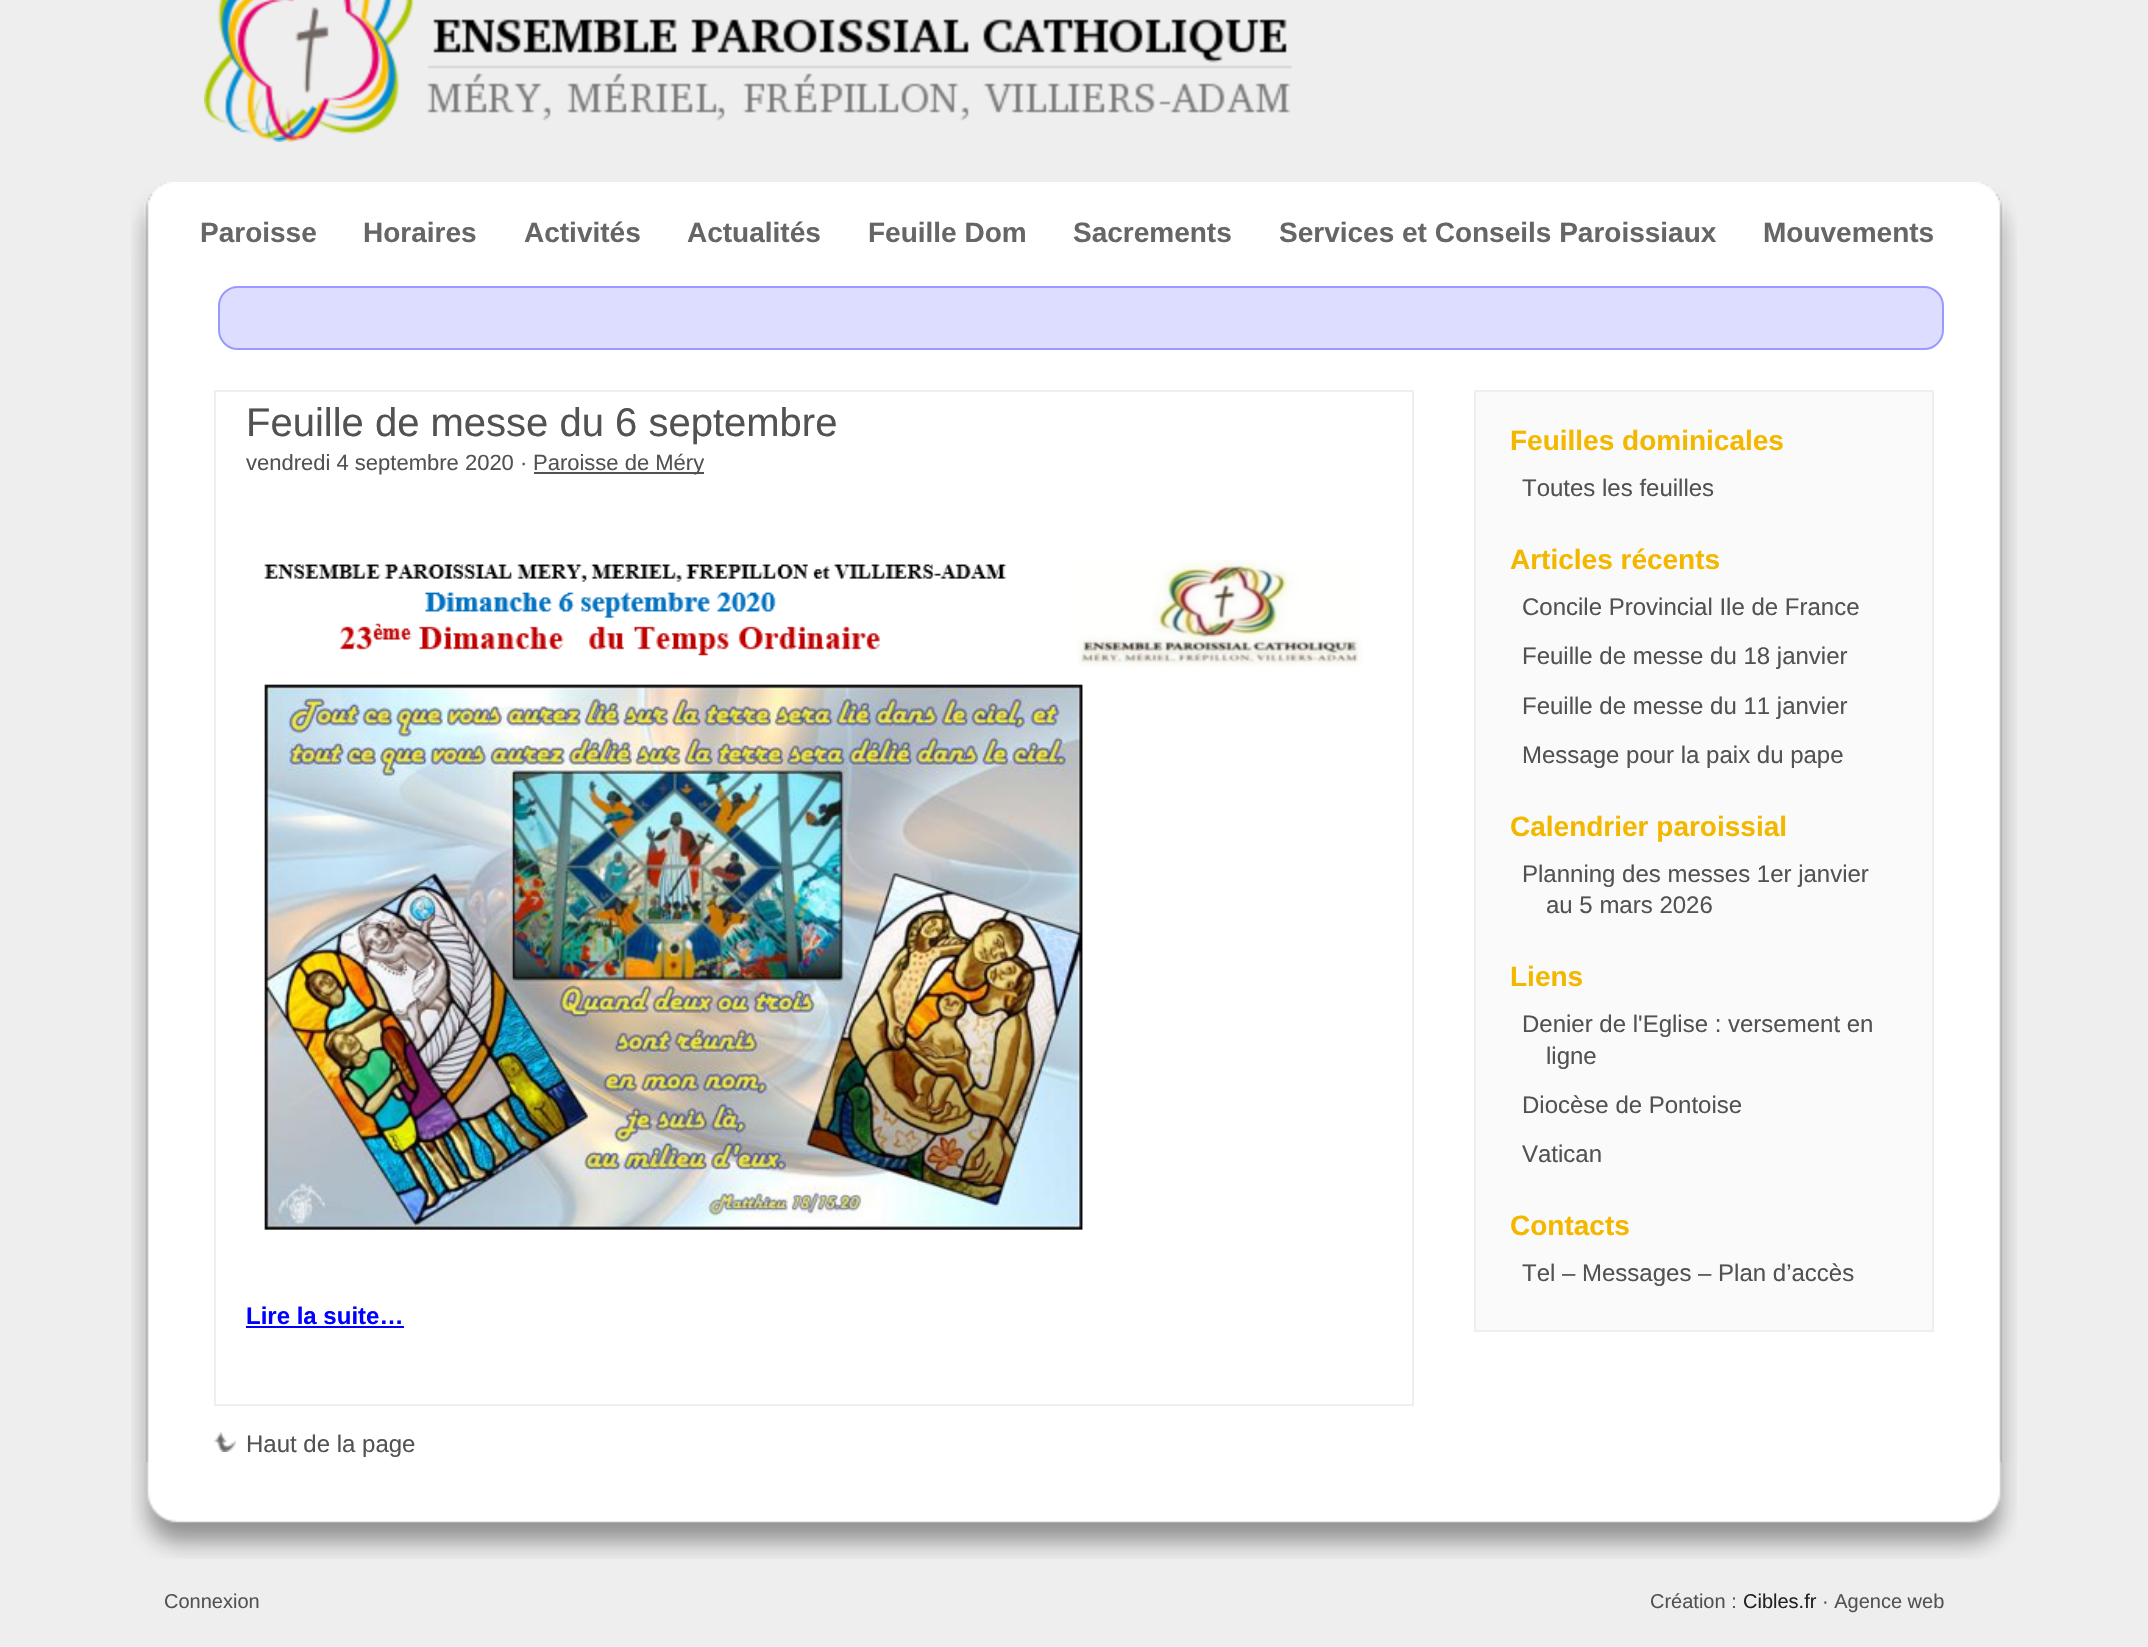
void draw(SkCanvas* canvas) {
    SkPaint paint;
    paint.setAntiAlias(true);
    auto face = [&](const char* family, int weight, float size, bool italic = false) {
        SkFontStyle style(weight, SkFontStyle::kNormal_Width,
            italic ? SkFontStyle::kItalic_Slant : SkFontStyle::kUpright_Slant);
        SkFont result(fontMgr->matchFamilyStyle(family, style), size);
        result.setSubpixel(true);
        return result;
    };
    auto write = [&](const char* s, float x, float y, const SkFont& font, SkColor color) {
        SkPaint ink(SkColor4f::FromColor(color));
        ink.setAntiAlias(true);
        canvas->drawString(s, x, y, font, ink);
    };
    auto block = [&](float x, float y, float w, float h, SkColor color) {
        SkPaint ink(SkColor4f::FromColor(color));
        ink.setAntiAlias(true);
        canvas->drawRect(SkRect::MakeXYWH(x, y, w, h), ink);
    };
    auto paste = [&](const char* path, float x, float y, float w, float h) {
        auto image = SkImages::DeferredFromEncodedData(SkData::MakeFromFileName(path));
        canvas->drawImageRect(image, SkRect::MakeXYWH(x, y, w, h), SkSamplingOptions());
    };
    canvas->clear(SkColorSetRGB(238, 238, 238));
    paste("pic1.png", 204, 0, 1088, 142);
    paste("pic2.png", 131, 182, 1886, 74);
    auto kFont1 = face("Liberation Sans", 700, 28);
    write("Paroisse", 200, 242, kFont1, SkColorSetRGB(102, 102, 102));
    write("Horaires", 363, 242, kFont1, SkColorSetRGB(102, 102, 102));
    write("Activités", 524, 242, kFont1, SkColorSetRGB(102, 102, 102));
    write("Actualités", 687, 242, kFont1, SkColorSetRGB(102, 102, 102));
    write("Feuille Dom", 868, 242, kFont1, SkColorSetRGB(102, 102, 102));
    write("Sacrements", 1073, 242, kFont1, SkColorSetRGB(102, 102, 102));
    write("Services et Conseils Paroissiaux", 1279, 242, kFont1, SkColorSetRGB(102, 102, 102));
    write("Mouvements", 1763, 242, kFont1, SkColorSetRGB(102, 102, 102));
    paste("pic3.png", 131, 256, 1886, 1206);
    paint.setColor(SkColorSetRGB(221, 221, 255));
    canvas->drawRoundRect(SkRect::MakeXYWH(219, 287, 1724, 62), 19, 19, paint);
    paint.setStyle(SkPaint::kStroke_Style);
    paint.setStrokeWidth(2);
    paint.setColor(SkColorSetRGB(153, 153, 255));
    canvas->drawRoundRect(SkRect::MakeXYWH(219, 287, 1724, 62), 19, 19, paint);
    paint.setColor(SkColorSetRGB(238, 238, 238));
    canvas->drawRect(SkRect::MakeXYWH(215, 391, 1198, 1014), paint);
    auto kFont2 = face("Liberation Sans", 400, 40);
    write("Feuille de messe du 6 septembre", 246, 436, kFont2, SkColorSetRGB(82, 82, 82));
    auto kFont3 = face("Liberation Sans", 400, 22);
    write("vendredi 4 septembre 2020 ·", 246, 470, kFont3, SkColorSetRGB(82, 82, 82));
    block(534, 472, 170, 2, SkColorSetRGB(82, 82, 82));
    write("Paroisse de Méry", 533, 470, kFont3, SkColorSetRGB(82, 82, 82));
    paste("pic4.png", 264, 560, 1099, 670);
    auto kFont4 = face("Liberation Sans", 700, 24);
    write("Lire la suite…", 246, 1324, kFont4, SkColorSetRGB(0, 0, 255));
    block(246, 1326, 158, 2, SkColorSetRGB(0, 0, 255));
    paste("pic5.png", 214, 1432, 22, 20);
    auto kFont5 = face("Liberation Sans", 400, 24);
    write("Haut de la page", 246, 1452, kFont5, SkColorSetRGB(82, 82, 82));
    paint.setStyle(SkPaint::kFill_Style);
    paint.setColor(SkColorSetRGB(250, 250, 250));
    canvas->drawRect(SkRect::MakeXYWH(1475, 391, 458, 940), paint);
    paint.setStyle(SkPaint::kStroke_Style);
    paint.setColor(SkColorSetRGB(238, 238, 238));
    canvas->drawRect(SkRect::MakeXYWH(1475, 391, 458, 940), paint);
    write("Feuilles dominicales", 1510, 450, kFont1, SkColorSetRGB(244, 183, 0));
    write("Toutes les feuilles", 1522, 496, kFont5, SkColorSetRGB(82, 82, 82));
    write("Articles récents", 1510, 569, kFont1, SkColorSetRGB(244, 183, 0));
    write("Concile Provincial Ile de France", 1522, 615, kFont5, SkColorSetRGB(82, 82, 82));
    write("Feuille de messe du 18 janvier", 1522, 664, kFont5, SkColorSetRGB(82, 82, 82));
    write("Feuille de messe du 11 janvier", 1522, 714, kFont5, SkColorSetRGB(82, 82, 82));
    write("Message pour la paix du pape", 1522, 763, kFont5, SkColorSetRGB(82, 82, 82));
    write("Calendrier paroissial", 1510, 836, kFont1, SkColorSetRGB(244, 183, 0));
    write("Planning des messes 1er janvier", 1522, 882, kFont5, SkColorSetRGB(82, 82, 82));
    write("au 5 mars 2026", 1546, 913, kFont5, SkColorSetRGB(82, 82, 82));
    write("Liens", 1510, 986, kFont1, SkColorSetRGB(244, 183, 0));
    write("Denier de l'Eglise : versement en", 1522, 1032, kFont5, SkColorSetRGB(82, 82, 82));
    write("ligne", 1546, 1064, kFont5, SkColorSetRGB(82, 82, 82));
    write("Diocèse de Pontoise", 1522, 1113, kFont5, SkColorSetRGB(82, 82, 82));
    write("Vatican", 1522, 1162, kFont5, SkColorSetRGB(82, 82, 82));
    write("Contacts", 1510, 1235, kFont1, SkColorSetRGB(244, 183, 0));
    write("Tel – Messages – Plan d’accès", 1522, 1281, kFont5, SkColorSetRGB(82, 82, 82));
    paste("pic6.png", 131, 1462, 1886, 97);
    auto kFont6 = face("Liberation Sans", 400, 20);
    write("Connexion", 164, 1608, kFont6, SkColorSetRGB(82, 82, 82));
    write("Création :", 1650, 1608, kFont6, SkColorSetRGB(82, 82, 82));
    write("Cibles.fr", 1743, 1608, kFont6, SkColorSetRGB(34, 34, 34));
    write("· Agence web", 1822, 1608, kFont6, SkColorSetRGB(82, 82, 82));
}
